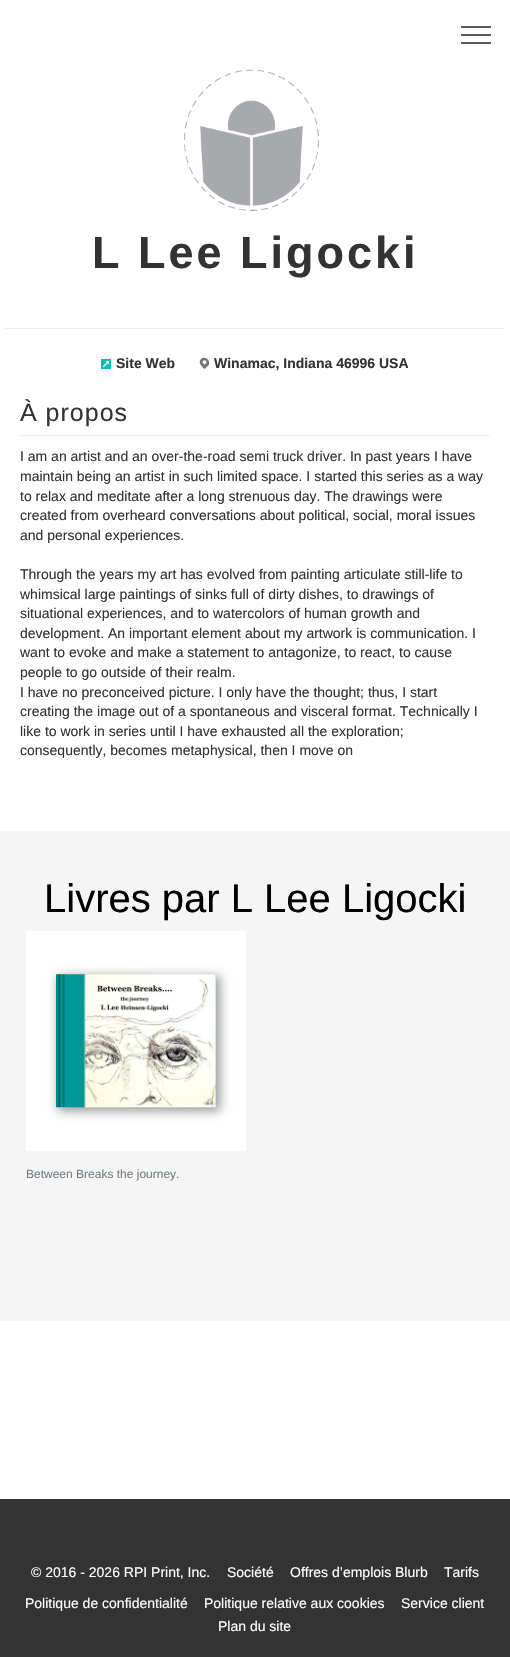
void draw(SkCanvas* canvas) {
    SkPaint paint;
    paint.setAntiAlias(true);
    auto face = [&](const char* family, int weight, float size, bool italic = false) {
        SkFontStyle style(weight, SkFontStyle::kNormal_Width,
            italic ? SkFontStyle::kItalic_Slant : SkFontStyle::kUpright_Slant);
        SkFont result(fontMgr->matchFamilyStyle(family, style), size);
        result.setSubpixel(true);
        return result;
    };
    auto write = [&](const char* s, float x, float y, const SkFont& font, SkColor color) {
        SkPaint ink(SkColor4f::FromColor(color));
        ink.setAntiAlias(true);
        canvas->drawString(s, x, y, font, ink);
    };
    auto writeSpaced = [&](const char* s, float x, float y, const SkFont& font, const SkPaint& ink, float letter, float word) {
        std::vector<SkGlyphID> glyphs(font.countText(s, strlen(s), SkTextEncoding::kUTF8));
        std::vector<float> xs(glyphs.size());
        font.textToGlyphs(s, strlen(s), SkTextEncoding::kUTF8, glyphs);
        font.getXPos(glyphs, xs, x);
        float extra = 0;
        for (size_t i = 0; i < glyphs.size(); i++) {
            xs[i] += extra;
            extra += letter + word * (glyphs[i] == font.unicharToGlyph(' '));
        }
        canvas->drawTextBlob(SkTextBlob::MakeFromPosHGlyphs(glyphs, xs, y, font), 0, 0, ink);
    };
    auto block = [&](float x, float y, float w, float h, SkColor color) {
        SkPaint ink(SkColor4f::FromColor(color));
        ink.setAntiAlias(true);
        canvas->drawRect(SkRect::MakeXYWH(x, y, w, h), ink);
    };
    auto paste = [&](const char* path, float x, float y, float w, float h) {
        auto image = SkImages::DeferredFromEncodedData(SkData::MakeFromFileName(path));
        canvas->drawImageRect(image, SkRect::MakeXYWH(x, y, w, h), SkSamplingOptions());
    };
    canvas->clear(SK_ColorWHITE);
    block(461, 42, 30, 2, SkColorSetRGB(89, 89, 89));
    block(461, 34, 30, 2, SkColorSetRGB(89, 89, 89));
    block(461, 26, 30, 2, SkColorSetRGB(89, 89, 89));
    paste("pic1.png", 184, 69, 136, 142);
    auto kFont1 = face("Liberation Sans", 700, 45);
    paint.setColor(SkColorSetRGB(51, 51, 51));
    writeSpaced("L Lee Ligocki", 92, 268, kFont1, paint, 3, 0);
    block(5, 328, 500, 1, SkColorSetRGB(238, 238, 238));
    paste("pic2.png", 101, 359, 10, 10);
    auto kFont2 = face("Liberation Sans", 700, 14);
    write("Site Web", 116, 368, kFont2, SkColorSetRGB(51, 51, 51));
    paint.setColor(SkColorSetRGB(117, 117, 117));
    canvas->drawPath(SkPathBuilder().moveTo(201, 359).cubicTo(204.5f, 355.5f, 210.5f, 359.5f, 209, 364.5f).cubicTo(208, 366, 206, 367.5f, 204.5f, 369).cubicTo(202, 366.5f, 197.5f, 363, 201, 359).close().detach(), paint);
    paint.setColor(SK_ColorWHITE);
    canvas->drawPath(SkPathBuilder().moveTo(203, 361).cubicTo(205, 359, 207.5f, 362, 206, 363.5f).cubicTo(204, 365.5f, 201.5f, 362.5f, 203, 361).close().detach(), paint);
    write("Winamac, Indiana 46996 USA", 214, 368, kFont2, SkColorSetRGB(51, 51, 51));
    auto kFont3 = face("Liberation Sans", 400, 25);
    paint.setColor(SkColorSetRGB(51, 51, 51));
    writeSpaced("À propos", 20, 421, kFont3, paint, 1, 0);
    block(20, 435, 470, 1, SkColorSetRGB(238, 238, 238));
    auto kFont4 = face("Liberation Sans", 400, 14);
    write("I am an artist and an over-the-road semi truck driver. In past years I have", 20, 461, kFont4, SkColorSetRGB(51, 51, 51));
    write("maintain being an artist in such limited space. I started this series as a way", 20, 481, kFont4, SkColorSetRGB(51, 51, 51));
    write("to relax and meditate after a long strenuous day. The drawings were", 20, 501, kFont4, SkColorSetRGB(51, 51, 51));
    write("created from overheard conversations about political, social, moral issues", 20, 520, kFont4, SkColorSetRGB(51, 51, 51));
    write("and personal experiences.", 20, 540, kFont4, SkColorSetRGB(51, 51, 51));
    write("Through the years my art has evolved from painting articulate still-life to", 20, 579, kFont4, SkColorSetRGB(51, 51, 51));
    write("whimsical large paintings of sinks full of dirty dishes, to drawings of", 20, 599, kFont4, SkColorSetRGB(51, 51, 51));
    write("situational experiences, and to watercolors of human growth and", 20, 618, kFont4, SkColorSetRGB(51, 51, 51));
    write("development. An important element about my artwork is communication. I", 20, 638, kFont4, SkColorSetRGB(51, 51, 51));
    write("want to evoke and make a statement to antagonize, to react, to cause", 20, 657, kFont4, SkColorSetRGB(51, 51, 51));
    write("people to go outside of their realm.", 20, 677, kFont4, SkColorSetRGB(51, 51, 51));
    write("I have no preconceived picture. I only have the thought; thus, I start", 20, 697, kFont4, SkColorSetRGB(51, 51, 51));
    write("creating the image out of a spontaneous and visceral format. Technically I", 20, 716, kFont4, SkColorSetRGB(51, 51, 51));
    write("like to work in series until I have exhausted all the exploration;", 20, 736, kFont4, SkColorSetRGB(51, 51, 51));
    write("consequently, becomes metaphysical, then I move on", 20, 755, kFont4, SkColorSetRGB(51, 51, 51));
    block(0, 831, 510, 490, SkColorSetRGB(245, 245, 245));
    auto kFont5 = face("Liberation Sans", 400, 40);
    write("Livres par L Lee Ligocki", 44, 912, kFont5, SK_ColorBLACK);
    block(26, 931, 220, 220, SK_ColorWHITE);
    paint.setColor(SkColorSetRGB(153, 153, 153));
    paint.setMaskFilter(SkMaskFilter::MakeBlur(kNormal_SkBlurStyle, 5));
    canvas->drawRect(SkRect::MakeXYWH(58, 976, 162, 135), paint);
    paint.setMaskFilter(nullptr);
    paste("pic3.png", 56, 974, 160, 134);
    {
        const SkColor colors[] = {SkColorSetARGB(51, 0, 0, 0), SkColorSetARGB(0, 0, 0, 0), SkColorSetARGB(115, 0, 0, 0), SkColorSetARGB(0, 0, 0, 0), SkColorSetARGB(64, 0, 0, 0), SkColorSetARGB(0, 0, 0, 0), SkColorSetARGB(0, 0, 0, 0)};
        const float stops[] = {0, 0.12f, 0.29f, 0.45f, 0.7f, 0.85f, 1};
        const SkPoint ends[] = {{56, 1041}, {67, 1041}};
        paint.setShader(SkGradientShader::MakeLinear(ends, colors, stops, 7, SkTileMode::kClamp));
        paint.setAlpha(255);
    }
    canvas->drawRect(SkRect::MakeXYWH(56, 974, 9, 133), paint);
    auto kFont6 = face("Liberation Sans", 400, 12);
    write("Between Breaks the journey.", 26, 1178, kFont6, SkColorSetRGB(116, 125, 130));
    block(0, 1499, 510, 158, SkColorSetRGB(51, 51, 51));
    write("© 2016 - 2026 RPI Print, Inc.", 31, 1577, kFont4, SK_ColorWHITE);
    write("Société", 227, 1577, kFont4, SK_ColorWHITE);
    write("Offres d’emplois Blurb", 290, 1577, kFont4, SK_ColorWHITE);
    write("Tarifs", 444, 1577, kFont4, SK_ColorWHITE);
    write("Politique de confidentialité", 25, 1608, kFont4, SK_ColorWHITE);
    write("Politique relative aux cookies", 204, 1608, kFont4, SK_ColorWHITE);
    write("Service client", 401, 1608, kFont4, SK_ColorWHITE);
    write("Plan du site", 218, 1631, kFont4, SK_ColorWHITE);
}
